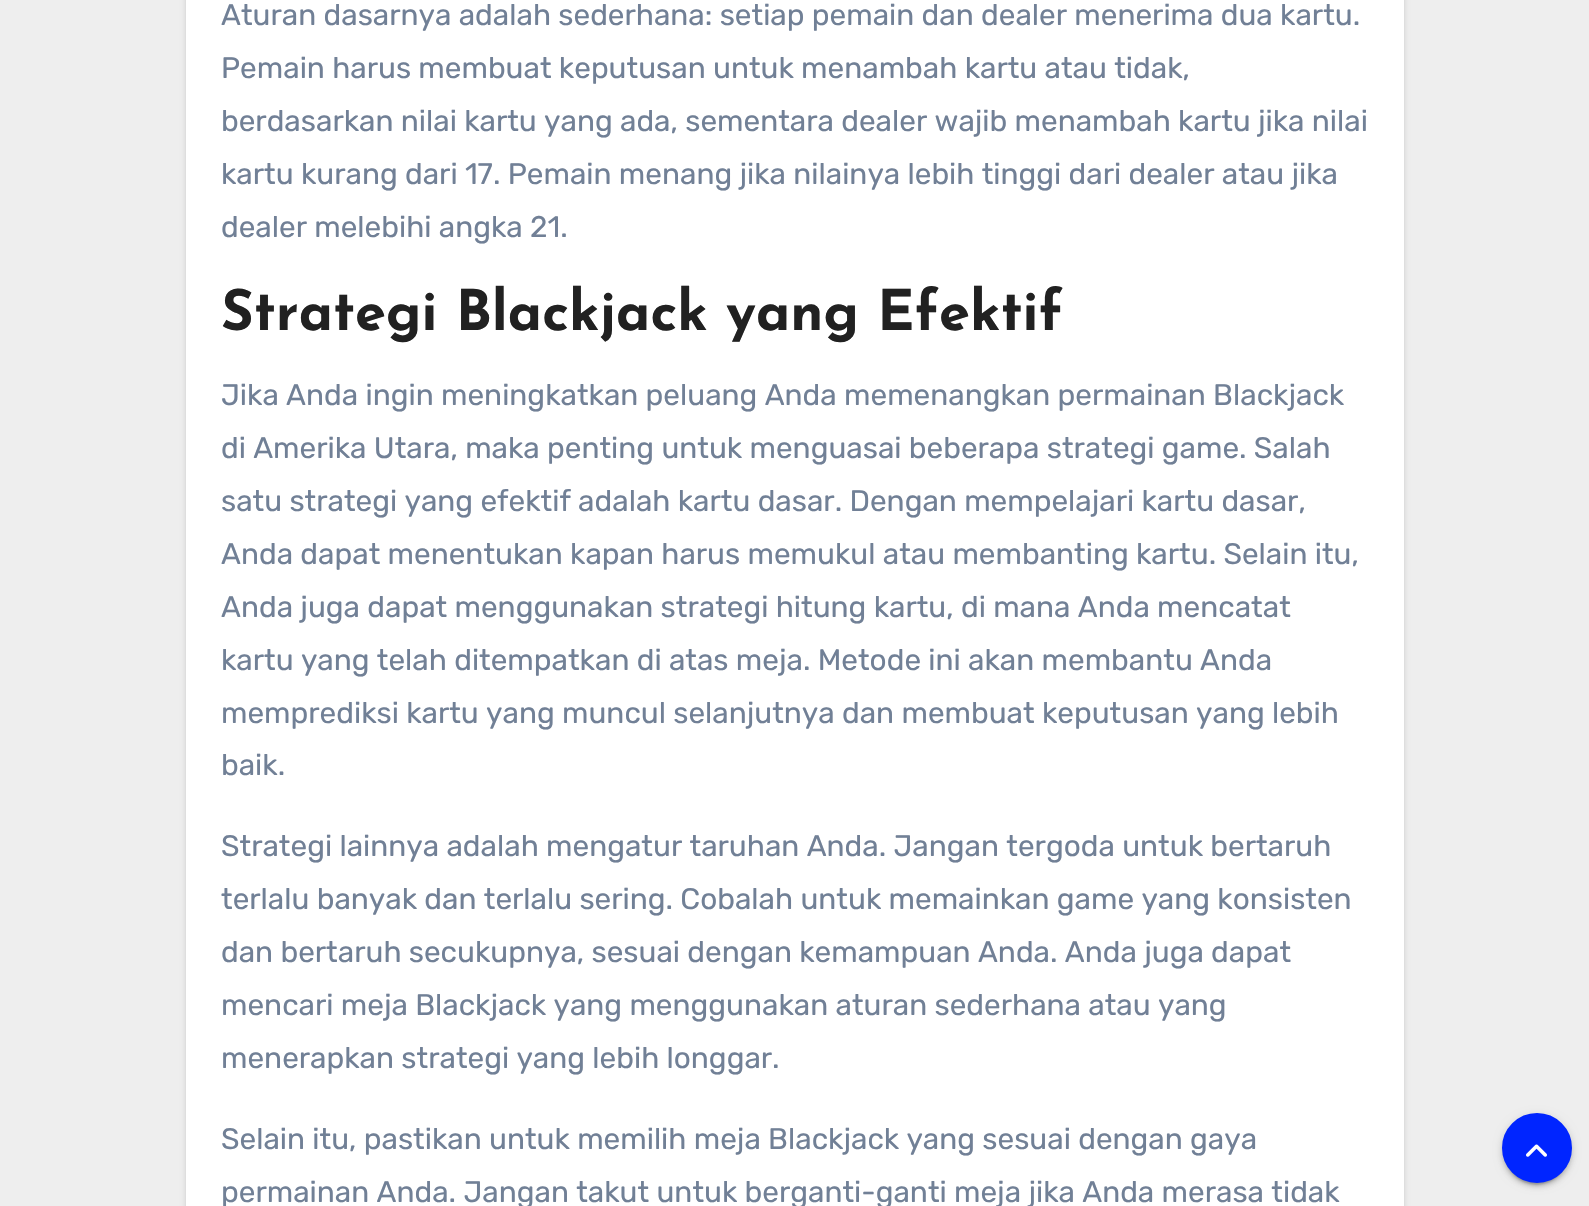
void draw(SkCanvas* canvas) {
    SkPaint paint;
    paint.setAntiAlias(true);
    auto face = [&](const char* family, int weight, float size, bool italic = false) {
        SkFontStyle style(weight, SkFontStyle::kNormal_Width,
            italic ? SkFontStyle::kItalic_Slant : SkFontStyle::kUpright_Slant);
        SkFont result(fontMgr->matchFamilyStyle(family, style), size);
        result.setSubpixel(true);
        return result;
    };
    auto write = [&](const char* s, float x, float y, const SkFont& font, SkColor color) {
        SkPaint ink(SkColor4f::FromColor(color));
        ink.setAntiAlias(true);
        canvas->drawString(s, x, y, font, ink);
    };
    auto block = [&](float x, float y, float w, float h, SkColor color) {
        SkPaint ink(SkColor4f::FromColor(color));
        ink.setAntiAlias(true);
        canvas->drawRect(SkRect::MakeXYWH(x, y, w, h), ink);
    };
    auto paste = [&](const char* path, float x, float y, float w, float h) {
        auto image = SkImages::DeferredFromEncodedData(SkData::MakeFromFileName(path));
        canvas->drawImageRect(image, SkRect::MakeXYWH(x, y, w, h), SkSamplingOptions());
    };
    canvas->clear(SkColorSetRGB(238, 238, 238));
    paint.setColor(SkColorSetARGB(38, 0, 0, 0));
    paint.setMaskFilter(SkMaskFilter::MakeBlur(kNormal_SkBlurStyle, 2.5f));
    canvas->drawRect(SkRect::MakeXYWH(186, -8, 1218, 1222), paint);
    paint.setMaskFilter(nullptr);
    block(186, 0, 1218, 1206, SK_ColorWHITE);
    auto kFont1 = face("Rubik", 300, 29.75f);
    write("Aturan dasarnya adalah sederhana: setiap pemain dan dealer menerima dua kartu.", 221, 25, kFont1, SkColorSetRGB(113, 128, 150));
    write("Pemain harus membuat keputusan untuk menambah kartu atau tidak,", 221, 78, kFont1, SkColorSetRGB(113, 128, 150));
    write("berdasarkan nilai kartu yang ada, sementara dealer wajib menambah kartu jika nilai", 221, 131, kFont1, SkColorSetRGB(113, 128, 150));
    write("kartu kurang dari 17. Pemain menang jika nilainya lebih tinggi dari dealer atau jika", 221, 184, kFont1, SkColorSetRGB(113, 128, 150));
    write("dealer melebihi angka 21.", 221, 237, kFont1, SkColorSetRGB(113, 128, 150));
    auto kFont2 = face("Josefin Sans", 700, 56);
    write("Strategi Blackjack yang Efektif", 221, 330, kFont2, SkColorSetRGB(33, 33, 33));
    write("Jika Anda ingin meningkatkan peluang Anda memenangkan permainan Blackjack", 221, 405, kFont1, SkColorSetRGB(113, 128, 150));
    write("di Amerika Utara, maka penting untuk menguasai beberapa strategi game. Salah", 221, 458, kFont1, SkColorSetRGB(113, 128, 150));
    write("satu strategi yang efektif adalah kartu dasar. Dengan mempelajari kartu dasar,", 221, 511, kFont1, SkColorSetRGB(113, 128, 150));
    write("Anda dapat menentukan kapan harus memukul atau membanting kartu. Selain itu,", 221, 564, kFont1, SkColorSetRGB(113, 128, 150));
    write("Anda juga dapat menggunakan strategi hitung kartu, di mana Anda mencatat", 221, 617, kFont1, SkColorSetRGB(113, 128, 150));
    write("kartu yang telah ditempatkan di atas meja. Metode ini akan membantu Anda", 221, 670, kFont1, SkColorSetRGB(113, 128, 150));
    write("memprediksi kartu yang muncul selanjutnya dan membuat keputusan yang lebih", 221, 723, kFont1, SkColorSetRGB(113, 128, 150));
    write("baik.", 221, 775, kFont1, SkColorSetRGB(113, 128, 150));
    write("Strategi lainnya adalah mengatur taruhan Anda. Jangan tergoda untuk bertaruh", 221, 856, kFont1, SkColorSetRGB(113, 128, 150));
    write("terlalu banyak dan terlalu sering. Cobalah untuk memainkan game yang konsisten", 221, 909, kFont1, SkColorSetRGB(113, 128, 150));
    write("dan bertaruh secukupnya, sesuai dengan kemampuan Anda. Anda juga dapat", 221, 962, kFont1, SkColorSetRGB(113, 128, 150));
    write("mencari meja Blackjack yang menggunakan aturan sederhana atau yang", 221, 1015, kFont1, SkColorSetRGB(113, 128, 150));
    write("menerapkan strategi yang lebih longgar.", 221, 1068, kFont1, SkColorSetRGB(113, 128, 150));
    write("Selain itu, pastikan untuk memilih meja Blackjack yang sesuai dengan gaya", 221, 1149, kFont1, SkColorSetRGB(113, 128, 150));
    write("permainan Anda. Jangan takut untuk berganti-ganti meja jika Anda merasa tidak", 221, 1202, kFont1, SkColorSetRGB(113, 128, 150));
    paint.setColor(SkColorSetARGB(31, 0, 0, 0));
    paint.setMaskFilter(SkMaskFilter::MakeBlur(kNormal_SkBlurStyle, 4.5f));
    canvas->drawRoundRect(SkRect::MakeXYWH(1502, 1115, 70, 70), 35, 35, paint);
    paint.setMaskFilter(nullptr);
    paint.setColor(SkColorSetARGB(51, 0, 0, 0));
    paint.setMaskFilter(SkMaskFilter::MakeBlur(kNormal_SkBlurStyle, 1));
    canvas->drawRoundRect(SkRect::MakeXYWH(1505, 1122, 63, 63), 31.5f, 31.5f, paint);
    paint.setMaskFilter(nullptr);
    paint.setColor(SkColorSetARGB(36, 0, 0, 0));
    paint.setMaskFilter(SkMaskFilter::MakeBlur(kNormal_SkBlurStyle, 2));
    canvas->drawRoundRect(SkRect::MakeXYWH(1502, 1117, 70, 70), 35, 35, paint);
    paint.setMaskFilter(nullptr);
    paint.setColor(SkColorSetRGB(0, 37, 255));
    canvas->drawCircle(1537, 1148, 33, paint);
    paint.setStyle(SkPaint::kStroke_Style);
    paint.setStrokeWidth(4);
    canvas->drawCircle(1537, 1148, 33, paint);
    paste("pic1.png", 1526, 1144, 21, 13);
}
